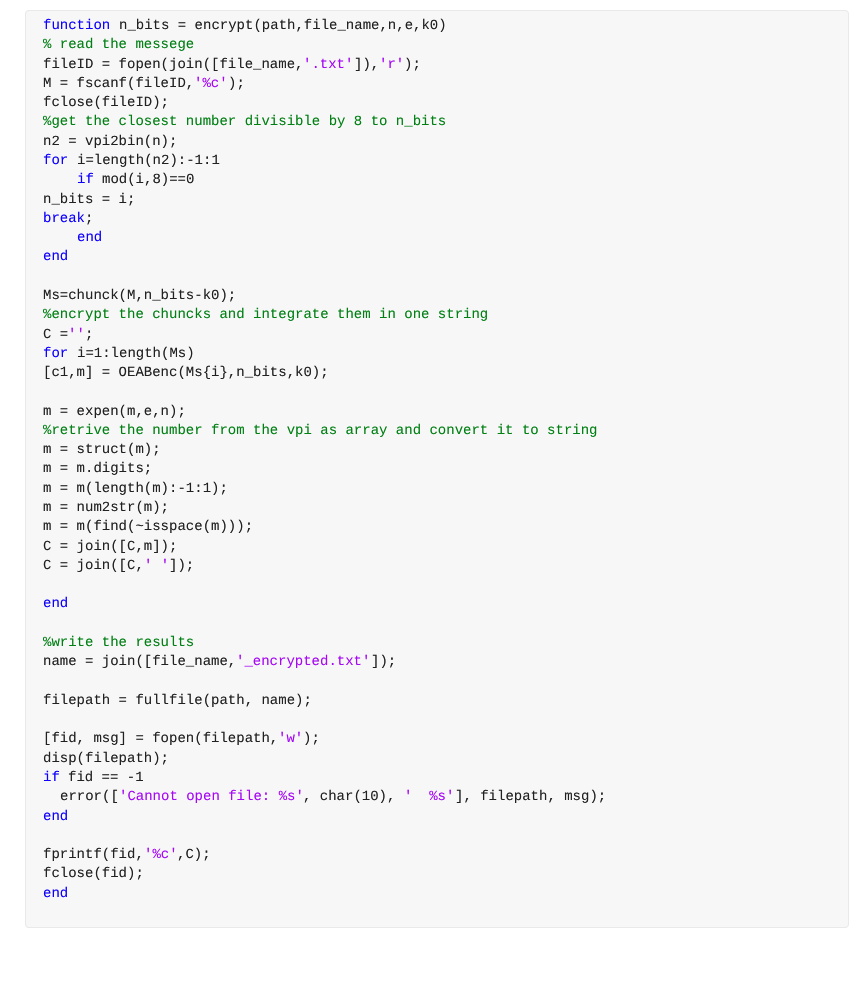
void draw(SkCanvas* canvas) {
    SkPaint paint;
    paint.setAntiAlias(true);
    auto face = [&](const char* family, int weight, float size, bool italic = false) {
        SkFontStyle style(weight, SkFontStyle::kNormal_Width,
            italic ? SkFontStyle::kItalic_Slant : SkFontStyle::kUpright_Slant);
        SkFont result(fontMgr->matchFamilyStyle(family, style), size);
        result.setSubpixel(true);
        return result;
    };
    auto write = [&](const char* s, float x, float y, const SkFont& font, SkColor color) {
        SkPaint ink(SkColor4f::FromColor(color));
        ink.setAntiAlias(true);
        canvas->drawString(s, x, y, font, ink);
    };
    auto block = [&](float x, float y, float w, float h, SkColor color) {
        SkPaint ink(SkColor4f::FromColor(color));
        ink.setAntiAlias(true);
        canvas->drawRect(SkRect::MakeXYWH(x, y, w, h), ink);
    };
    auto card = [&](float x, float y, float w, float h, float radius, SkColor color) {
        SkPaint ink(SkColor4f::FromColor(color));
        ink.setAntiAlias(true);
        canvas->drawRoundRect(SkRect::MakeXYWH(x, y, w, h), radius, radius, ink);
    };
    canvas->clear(SK_ColorWHITE);
    card(25, 10, 824, 918, 4, SkColorSetRGB(247, 247, 247));
    paint.setColor(SkColorSetRGB(233, 233, 233));
    canvas->drawPath(SkPathBuilder(SkPathFillType::kEvenOdd).moveTo(29, 10).lineTo(845, 10).cubicTo(847, 10, 849, 12, 849, 14).lineTo(849, 35).lineTo(25, 35).lineTo(25, 14).cubicTo(25, 12, 27, 10, 29, 10).close().moveTo(29, 11).lineTo(845, 11).cubicTo(847, 11, 848, 12, 848, 14).lineTo(848, 35).lineTo(26, 35).lineTo(26, 14).cubicTo(26, 12, 27, 11, 29, 11).close().detach(), paint);
    auto kFont1 = face("Liberation Mono", 400, 14);
    write("function", 43, 29, kFont1, SkColorSetRGB(14, 0, 255));
    write("n_bits = encrypt(path,file_name,n,e,k0)", 119, 29, kFont1, SkColorSetRGB(33, 33, 33));
    block(848, 35, 1, 868, SkColorSetRGB(233, 233, 233));
    block(25, 35, 1, 868, SkColorSetRGB(233, 233, 233));
    write("% read the messege", 43, 48, kFont1, SkColorSetRGB(0, 128, 19));
    write("fileID = fopen(join([file_name,", 43, 68, kFont1, SkColorSetRGB(33, 33, 33));
    write("'.txt'", 303, 68, kFont1, SkColorSetRGB(167, 9, 245));
    write("]),", 354, 68, kFont1, SkColorSetRGB(33, 33, 33));
    write("'r'", 379, 68, kFont1, SkColorSetRGB(167, 9, 245));
    write(");", 404, 68, kFont1, SkColorSetRGB(33, 33, 33));
    write("M = fscanf(fileID,", 43, 87, kFont1, SkColorSetRGB(33, 33, 33));
    write("'%c'", 194, 87, kFont1, SkColorSetRGB(167, 9, 245));
    write(");", 228, 87, kFont1, SkColorSetRGB(33, 33, 33));
    write("fclose(fileID);", 43, 106, kFont1, SkColorSetRGB(33, 33, 33));
    write("%get the closest number divisible by 8 to n_bits", 43, 125, kFont1, SkColorSetRGB(0, 128, 19));
    write("n2 = vpi2bin(n);", 43, 145, kFont1, SkColorSetRGB(33, 33, 33));
    write("for", 43, 164, kFont1, SkColorSetRGB(14, 0, 255));
    write("i=length(n2):-1:1", 77, 164, kFont1, SkColorSetRGB(33, 33, 33));
    write("if", 77, 183, kFont1, SkColorSetRGB(14, 0, 255));
    write("mod(i,8)==0", 102, 183, kFont1, SkColorSetRGB(33, 33, 33));
    write("n_bits = i;", 43, 203, kFont1, SkColorSetRGB(33, 33, 33));
    write("break", 43, 222, kFont1, SkColorSetRGB(14, 0, 255));
    write(";", 85, 222, kFont1, SkColorSetRGB(33, 33, 33));
    write("end", 77, 241, kFont1, SkColorSetRGB(14, 0, 255));
    write("end", 43, 260, kFont1, SkColorSetRGB(14, 0, 255));
    write("Ms=chunck(M,n_bits-k0);", 43, 299, kFont1, SkColorSetRGB(33, 33, 33));
    write("%encrypt the chuncks and integrate them in one string", 43, 318, kFont1, SkColorSetRGB(0, 128, 19));
    write("C =", 43, 338, kFont1, SkColorSetRGB(33, 33, 33));
    write("''", 68, 338, kFont1, SkColorSetRGB(167, 9, 245));
    write(";", 85, 338, kFont1, SkColorSetRGB(33, 33, 33));
    write("for", 43, 357, kFont1, SkColorSetRGB(14, 0, 255));
    write("i=1:length(Ms)", 77, 357, kFont1, SkColorSetRGB(33, 33, 33));
    write("[c1,m] = OEABenc(Ms{i},n_bits,k0);", 43, 376, kFont1, SkColorSetRGB(33, 33, 33));
    write("m = expen(m,e,n);", 43, 415, kFont1, SkColorSetRGB(33, 33, 33));
    write("%retrive the number from the vpi as array and convert it to string", 43, 434, kFont1, SkColorSetRGB(0, 128, 19));
    write("m = struct(m);", 43, 453, kFont1, SkColorSetRGB(33, 33, 33));
    write("m = m.digits;", 43, 472, kFont1, SkColorSetRGB(33, 33, 33));
    write("m = m(length(m):-1:1);", 43, 492, kFont1, SkColorSetRGB(33, 33, 33));
    write("m = num2str(m);", 43, 511, kFont1, SkColorSetRGB(33, 33, 33));
    write("m = m(find(~isspace(m)));", 43, 530, kFont1, SkColorSetRGB(33, 33, 33));
    write("C = join([C,m]);", 43, 550, kFont1, SkColorSetRGB(33, 33, 33));
    write("C = join([C,", 43, 569, kFont1, SkColorSetRGB(33, 33, 33));
    write("' '", 144, 569, kFont1, SkColorSetRGB(167, 9, 245));
    write("]);", 169, 569, kFont1, SkColorSetRGB(33, 33, 33));
    write("end", 43, 607, kFont1, SkColorSetRGB(14, 0, 255));
    write("%write the results", 43, 646, kFont1, SkColorSetRGB(0, 128, 19));
    write("name = join([file_name,", 43, 665, kFont1, SkColorSetRGB(33, 33, 33));
    write("'_encrypted.txt'", 236, 665, kFont1, SkColorSetRGB(167, 9, 245));
    write("]);", 371, 665, kFont1, SkColorSetRGB(33, 33, 33));
    write("filepath = fullfile(path, name);", 43, 704, kFont1, SkColorSetRGB(33, 33, 33));
    write("[fid, msg] = fopen(filepath,", 43, 742, kFont1, SkColorSetRGB(33, 33, 33));
    write("'w'", 278, 742, kFont1, SkColorSetRGB(167, 9, 245));
    write(");", 303, 742, kFont1, SkColorSetRGB(33, 33, 33));
    write("disp(filepath);", 43, 762, kFont1, SkColorSetRGB(33, 33, 33));
    write("if", 43, 781, kFont1, SkColorSetRGB(14, 0, 255));
    write("fid == -1", 68, 781, kFont1, SkColorSetRGB(33, 33, 33));
    write("error([", 60, 800, kFont1, SkColorSetRGB(33, 33, 33));
    write("'Cannot open file: %s'", 119, 800, kFont1, SkColorSetRGB(167, 9, 245));
    write(", char(10),", 303, 800, kFont1, SkColorSetRGB(33, 33, 33));
    write("'  %s'", 404, 800, kFont1, SkColorSetRGB(167, 9, 245));
    write("], filepath, msg);", 455, 800, kFont1, SkColorSetRGB(33, 33, 33));
    write("end", 43, 820, kFont1, SkColorSetRGB(14, 0, 255));
    write("fprintf(fid,", 43, 858, kFont1, SkColorSetRGB(33, 33, 33));
    write("'%c'", 144, 858, kFont1, SkColorSetRGB(167, 9, 245));
    write(",C);", 177, 858, kFont1, SkColorSetRGB(33, 33, 33));
    write("fclose(fid);", 43, 877, kFont1, SkColorSetRGB(33, 33, 33));
    write("end", 43, 897, kFont1, SkColorSetRGB(14, 0, 255));
    canvas->drawPath(SkPathBuilder(SkPathFillType::kEvenOdd).moveTo(25, 903).lineTo(849, 903).lineTo(849, 924).cubicTo(849, 926, 847, 928, 845, 928).lineTo(29, 928).cubicTo(27, 928, 25, 926, 25, 924).close().moveTo(26, 903).lineTo(848, 903).lineTo(848, 924).cubicTo(848, 926, 847, 927, 845, 927).lineTo(29, 927).cubicTo(27, 927, 26, 926, 26, 924).close().detach(), paint);
}
